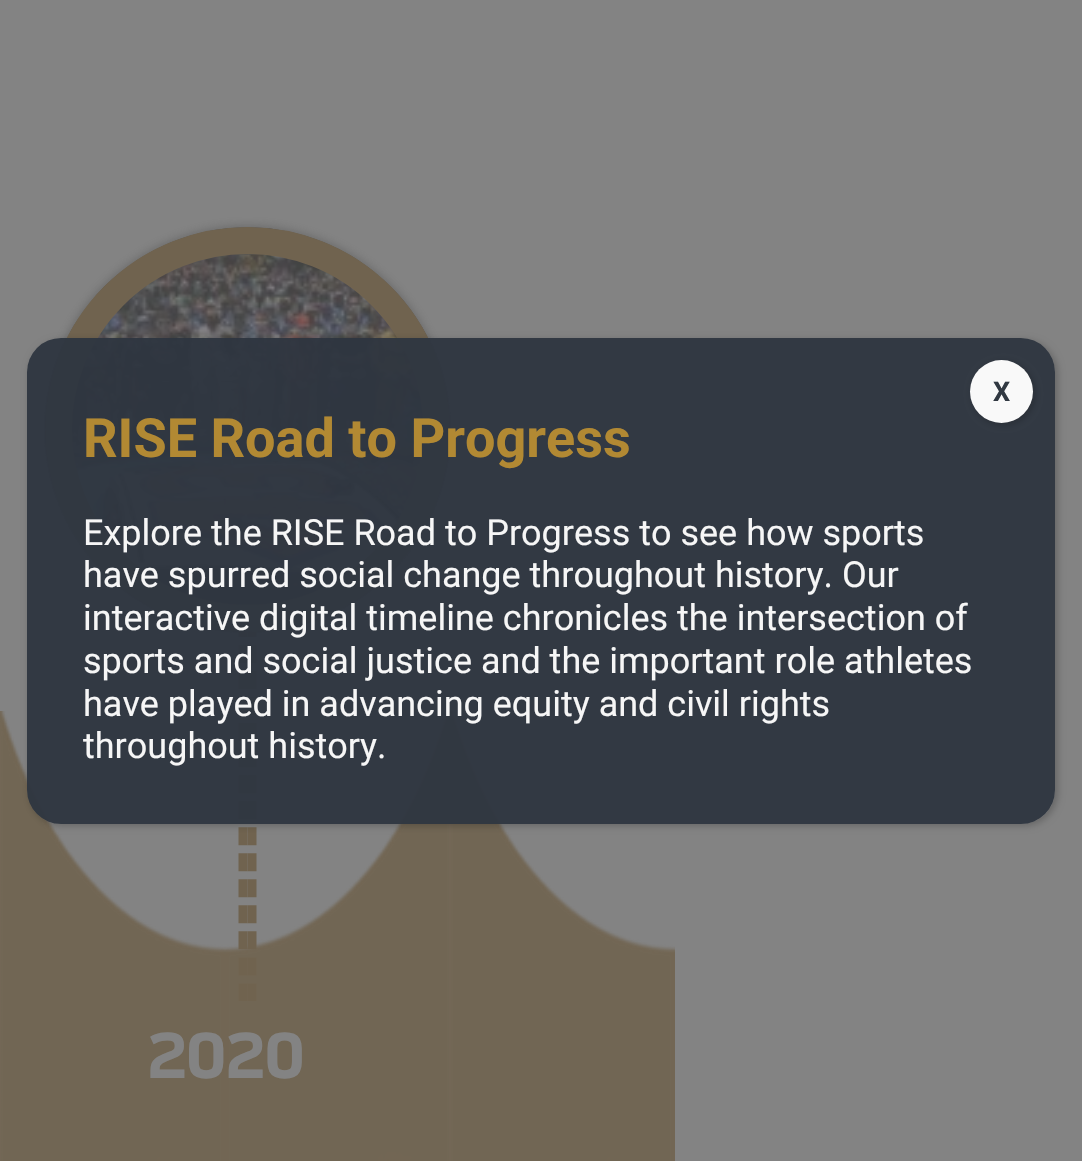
void draw(SkCanvas* canvas) {
    SkPaint paint;
    paint.setAntiAlias(true);
    auto face = [&](const char* family, int weight, float size, bool italic = false) {
        SkFontStyle style(weight, SkFontStyle::kNormal_Width,
            italic ? SkFontStyle::kItalic_Slant : SkFontStyle::kUpright_Slant);
        SkFont result(fontMgr->matchFamilyStyle(family, style), size);
        result.setSubpixel(true);
        return result;
    };
    auto write = [&](const char* s, float x, float y, const SkFont& font, SkColor color) {
        SkPaint ink(SkColor4f::FromColor(color));
        ink.setAntiAlias(true);
        canvas->drawString(s, x, y, font, ink);
    };
    auto card = [&](float x, float y, float w, float h, float radius, SkColor color) {
        SkPaint ink(SkColor4f::FromColor(color));
        ink.setAntiAlias(true);
        canvas->drawRoundRect(SkRect::MakeXYWH(x, y, w, h), radius, radius, ink);
    };
    auto paste = [&](const char* path, float x, float y, float w, float h) {
        auto image = SkImages::DeferredFromEncodedData(SkData::MakeFromFileName(path));
        canvas->drawImageRect(image, SkRect::MakeXYWH(x, y, w, h), SkSamplingOptions());
    };
    canvas->clear(SkColorSetRGB(131, 131, 131));
    paste("pic2.png", 0, 711, 675, 450);
    paint.setStyle(SkPaint::kStroke_Style);
    paint.setStrokeWidth(9);
    paint.setColor(SkColorSetRGB(112, 99, 79));
    paint.setPathEffect(SkDashPathEffect::Make({{18, 8.03f}}, 0));
    canvas->drawPath(SkPathBuilder().moveTo(252, 619).lineTo(252, 1001).detach(), paint);
    paint.setPathEffect(nullptr);
    paint.setPathEffect(SkDashPathEffect::Make({{18, 8.03f}}, 0));
    canvas->drawPath(SkPathBuilder().moveTo(243, 619).lineTo(243, 1001).detach(), paint);
    paint.setPathEffect(nullptr);
    paint.setStyle(SkPaint::kFill_Style);
    paint.setColor(SkColorSetARGB(128, 67, 67, 67));
    paint.setMaskFilter(SkMaskFilter::MakeBlur(kNormal_SkBlurStyle, 5.5f));
    canvas->drawRoundRect(SkRect::MakeXYWH(45, 227, 405, 405), 202.5f, 202.5f, paint);
    paint.setMaskFilter(nullptr);
    paste("pic1.png", 45, 227, 405, 406);
    paint.setStyle(SkPaint::kStroke_Style);
    paint.setStrokeWidth(27);
    paint.setColor(SkColorSetRGB(112, 99, 79));
    canvas->drawCircle(247.5f, 429.5f, 189, paint);
    canvas->save();
    canvas->clipPath(SkPathBuilder(SkPathFillType::kEvenOdd).moveTo(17, 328).lineTo(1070, 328).lineTo(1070, 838).lineTo(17, 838).close().moveTo(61, 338).lineTo(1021, 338).cubicTo(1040, 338, 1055, 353, 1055, 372).lineTo(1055, 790).cubicTo(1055, 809, 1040, 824, 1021, 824).lineTo(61, 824).cubicTo(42, 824, 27, 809, 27, 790).lineTo(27, 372).cubicTo(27, 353, 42, 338, 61, 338).close().detach(), true);
    paint.setStyle(SkPaint::kFill_Style);
    paint.setColor(SkColorSetARGB(56, 2, 2, 2));
    paint.setMaskFilter(SkMaskFilter::MakeBlur(kNormal_SkBlurStyle, 3.5f));
    canvas->drawRoundRect(SkRect::MakeXYWH(29, 340, 1029, 486), 34, 34, paint);
    paint.setMaskFilter(nullptr);
    canvas->restore();
    card(27, 338, 1028, 486, 34, SkColorSetARGB(242, 45, 53, 63));
    paint.setColor(SkColorSetARGB(59, 8, 8, 8));
    paint.setMaskFilter(SkMaskFilter::MakeBlur(kNormal_SkBlurStyle, 3.5f));
    canvas->drawRoundRect(SkRect::MakeXYWH(972, 362, 63, 63), 31.5f, 31.5f, paint);
    paint.setMaskFilter(nullptr);
    paint.setColor(SkColorSetRGB(249, 249, 249));
    canvas->drawCircle(1001.5f, 391.5f, 31.5f, paint);
    auto kFont1 = face("Roboto", 700, 27);
    write("X", 993, 401, kFont1, SkColorSetRGB(49, 57, 66));
    auto kFont2 = face("Roboto", 700, 54);
    write("RISE Road to Progress", 83, 457, kFont2, SkColorSetRGB(178, 137, 51));
    auto kFont3 = face("Roboto", 400, 36);
    write("Explore the RISE Road to Progress to see how sports", 83, 545, kFont3, SkColorSetRGB(246, 246, 246));
    write("have spurred social change throughout history. Our", 83, 587, kFont3, SkColorSetRGB(246, 246, 246));
    write("interactive digital timeline chronicles the intersection of", 83, 630, kFont3, SkColorSetRGB(246, 246, 246));
    write("sports and social justice and the important role athletes", 83, 673, kFont3, SkColorSetRGB(246, 246, 246));
    write("have played in advancing equity and civil rights", 83, 716, kFont3, SkColorSetRGB(246, 246, 246));
    write("throughout history.", 83, 758, kFont3, SkColorSetRGB(246, 246, 246));
    auto kFont4 = face("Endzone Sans", 700, 63);
    write("2020", 147, 1078, kFont4, SkColorSetRGB(131, 131, 131));
}
